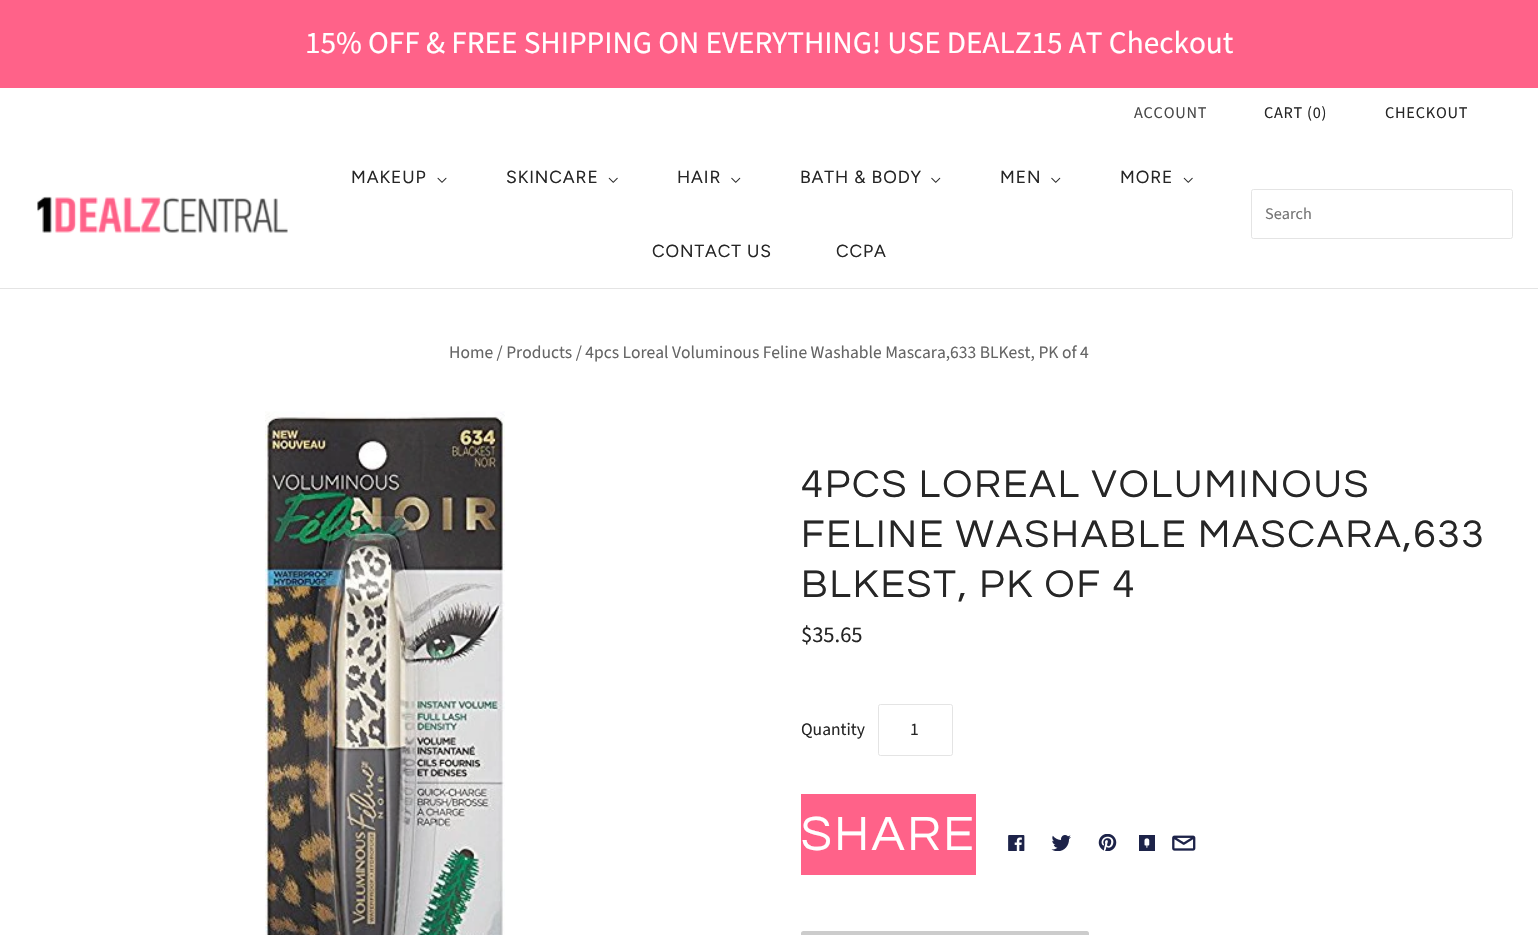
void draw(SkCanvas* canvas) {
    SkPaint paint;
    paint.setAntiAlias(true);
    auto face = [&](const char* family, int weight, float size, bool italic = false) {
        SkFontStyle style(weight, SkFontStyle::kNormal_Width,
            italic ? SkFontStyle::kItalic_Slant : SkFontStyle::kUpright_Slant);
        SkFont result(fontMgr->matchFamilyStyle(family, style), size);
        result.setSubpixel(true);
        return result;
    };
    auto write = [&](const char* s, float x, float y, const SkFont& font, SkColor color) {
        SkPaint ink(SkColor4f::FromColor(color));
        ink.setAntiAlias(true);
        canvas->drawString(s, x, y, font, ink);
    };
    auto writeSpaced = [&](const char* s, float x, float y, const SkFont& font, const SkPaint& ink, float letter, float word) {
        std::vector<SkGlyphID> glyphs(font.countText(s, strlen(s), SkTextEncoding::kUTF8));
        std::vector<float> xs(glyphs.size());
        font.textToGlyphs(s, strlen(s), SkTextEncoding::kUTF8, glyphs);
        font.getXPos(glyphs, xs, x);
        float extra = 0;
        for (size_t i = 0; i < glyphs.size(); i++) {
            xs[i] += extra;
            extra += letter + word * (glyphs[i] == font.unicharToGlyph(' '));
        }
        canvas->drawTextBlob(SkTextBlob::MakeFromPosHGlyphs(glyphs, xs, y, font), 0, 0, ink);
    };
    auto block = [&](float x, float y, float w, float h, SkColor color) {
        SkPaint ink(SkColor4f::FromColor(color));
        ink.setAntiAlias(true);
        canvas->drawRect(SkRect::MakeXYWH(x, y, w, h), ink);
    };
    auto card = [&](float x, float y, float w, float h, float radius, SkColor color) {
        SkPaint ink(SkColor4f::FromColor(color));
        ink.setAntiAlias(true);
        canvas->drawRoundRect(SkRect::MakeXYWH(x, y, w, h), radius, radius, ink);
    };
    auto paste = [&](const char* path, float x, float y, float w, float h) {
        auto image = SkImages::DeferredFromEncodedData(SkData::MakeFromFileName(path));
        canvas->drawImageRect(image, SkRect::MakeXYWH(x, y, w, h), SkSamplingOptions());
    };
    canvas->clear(SK_ColorWHITE);
    block(0, 0, 1538, 88, SkColorSetRGB(255, 98, 137));
    auto kFont1 = face("Source Sans Pro", 400, 31.25f);
    write("15% OFF & FREE SHIPPING ON EVERYTHING! USE DEALZ15 AT Checkout", 305, 53, kFont1, SK_ColorWHITE);
    block(0, 288, 1538, 1, SkColorSetRGB(228, 228, 228));
    auto kFont2 = face("Source Sans Pro", 400, 16.25f);
    paint.setColor(SkColorSetRGB(73, 73, 73));
    writeSpaced("ACCOUNT", 1134, 118, kFont2, paint, 0.75f, 0);
    paint.setColor(SkColorSetRGB(38, 38, 38));
    writeSpaced("CART (0)", 1264, 118, kFont2, paint, 0.75f, 0);
    writeSpaced("CHECKOUT", 1385, 118, kFont2, paint, 0.75f, 0);
    paste("pic1.png", 37, 196, 251, 37);
    auto kFont3 = face("Figtree", 400, 17.5f);
    writeSpaced("MAKEUP", 351, 183, kFont3, paint, 0.9f, 0);
    paste("pic2.png", 437, 177, 10, 6);
    writeSpaced("SKINCARE", 506, 183, kFont3, paint, 0.9f, 0);
    paste("pic3.png", 608, 177, 10, 6);
    writeSpaced("HAIR", 677, 183, kFont3, paint, 0.9f, 0);
    paste("pic4.png", 731, 177, 10, 6);
    writeSpaced("BATH & BODY", 800, 183, kFont3, paint, 0.9f, 0);
    paste("pic4.png", 931, 177, 10, 6);
    writeSpaced("MEN", 1000, 183, kFont3, paint, 0.9f, 0);
    paste("pic4.png", 1051, 177, 10, 6);
    writeSpaced("MORE", 1120, 183, kFont3, paint, 0.9f, 0);
    paste("pic3.png", 1183, 177, 10, 6);
    writeSpaced("CONTACT US", 652, 257, kFont3, paint, 0.9f, 0);
    writeSpaced("CCPA", 836, 257, kFont3, paint, 0.9f, 0);
    paint.setStyle(SkPaint::kStroke_Style);
    paint.setStrokeWidth(1);
    paint.setColor(SkColorSetRGB(228, 228, 228));
    canvas->drawRoundRect(SkRect::MakeXYWH(1251.5f, 189.5f, 261, 49), 2, 2, paint);
    write("Search", 1265, 219, kFont2, SkColorSetRGB(117, 117, 117));
    auto kFont4 = face("Source Sans Pro", 400, 17.5f);
    write("Home / Products / 4pcs Loreal Voluminous Feline Washable Mascara,633 BLKest, PK of 4", 449, 358, kFont4, SkColorSetRGB(101, 101, 101));
    paste("pic5.png", 265, 411, 240, 524);
    auto kFont5 = face("Questrial", 400, 40);
    paint.setStyle(SkPaint::kFill_Style);
    paint.setColor(SkColorSetRGB(38, 38, 38));
    writeSpaced("4PCS LOREAL VOLUMINOUS", 801, 497, kFont5, paint, 2, 0);
    writeSpaced("FELINE WASHABLE MASCARA,633", 801, 547, kFont5, paint, 2, 0);
    writeSpaced("BLKEST, PK OF 4", 801, 597, kFont5, paint, 2, 0);
    auto kFont6 = face("Source Sans Pro", 400, 22.5f);
    write("$35.65", 801, 642, kFont6, SkColorSetRGB(38, 38, 38));
    write("Quantity", 801, 735, kFont4, SkColorSetRGB(38, 38, 38));
    paint.setStyle(SkPaint::kStroke_Style);
    paint.setColor(SkColorSetRGB(228, 228, 228));
    canvas->drawRoundRect(SkRect::MakeXYWH(878.5f, 704.5f, 74, 51), 2, 2, paint);
    write("1", 910, 735, kFont4, SkColorSetRGB(38, 38, 38));
    block(801, 794, 175, 81, SkColorSetRGB(255, 98, 137));
    auto kFont7 = face("Questrial", 400, 50);
    paint.setStyle(SkPaint::kFill_Style);
    paint.setColor(SK_ColorWHITE);
    writeSpaced("SHARE", 801, 850, kFont7, paint, 2.5f, 0);
    paste("pic6.png", 1008, 835, 17, 16);
    paste("pic7.png", 1051, 835, 20, 16);
    paste("pic8.png", 1098, 834, 19, 17);
    paste("pic9.png", 1139, 835, 16, 16);
    paste("pic10.png", 1172, 835, 24, 16);
    card(801, 931, 288, 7, 2.5f, SkColorSetRGB(204, 204, 204));
}
